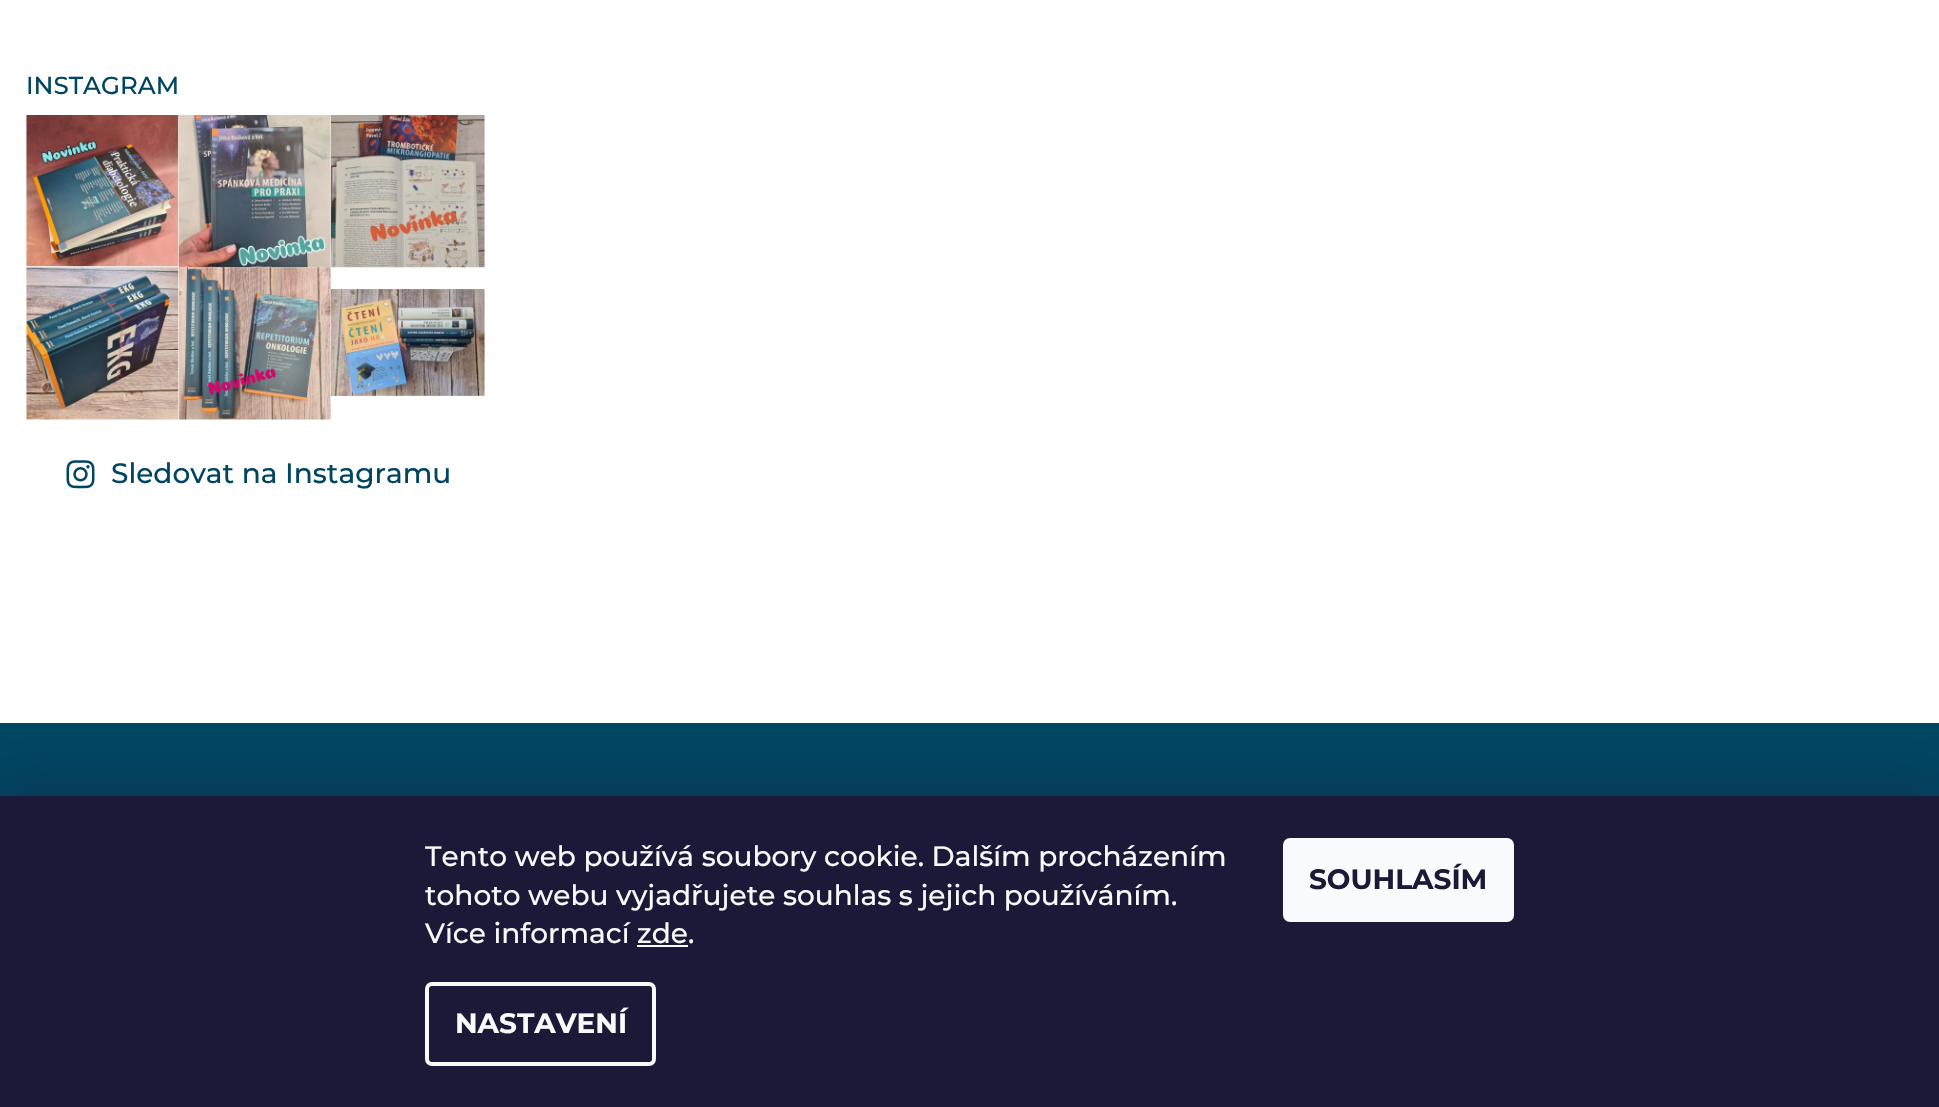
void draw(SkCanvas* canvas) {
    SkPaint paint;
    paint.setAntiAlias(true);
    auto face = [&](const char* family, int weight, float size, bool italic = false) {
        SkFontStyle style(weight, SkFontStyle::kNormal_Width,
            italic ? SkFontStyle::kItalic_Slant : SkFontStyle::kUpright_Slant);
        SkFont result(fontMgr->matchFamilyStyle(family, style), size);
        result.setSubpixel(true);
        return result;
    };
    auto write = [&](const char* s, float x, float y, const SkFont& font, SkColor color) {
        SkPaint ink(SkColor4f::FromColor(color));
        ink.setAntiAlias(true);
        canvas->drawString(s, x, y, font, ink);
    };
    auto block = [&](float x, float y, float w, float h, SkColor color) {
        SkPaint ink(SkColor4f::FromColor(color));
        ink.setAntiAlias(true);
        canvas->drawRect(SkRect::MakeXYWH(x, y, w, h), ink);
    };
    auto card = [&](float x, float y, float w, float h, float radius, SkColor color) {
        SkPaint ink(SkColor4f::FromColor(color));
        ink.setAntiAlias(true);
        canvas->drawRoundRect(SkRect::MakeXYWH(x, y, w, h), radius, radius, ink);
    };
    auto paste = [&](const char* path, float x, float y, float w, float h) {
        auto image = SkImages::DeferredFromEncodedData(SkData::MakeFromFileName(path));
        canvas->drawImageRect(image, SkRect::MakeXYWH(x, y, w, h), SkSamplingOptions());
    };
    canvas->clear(SK_ColorWHITE);
    auto kFont1 = face("Montserrat", 500, 24.5f);
    write("INSTAGRAM", 26, 94, kFont1, SkColorSetRGB(0, 69, 98));
    paste("pic1.png", 26, 115, 153, 152);
    paste("pic2.png", 178, 115, 153, 153);
    paste("pic3.png", 330, 115, 155, 153);
    paste("pic4.png", 26, 267, 153, 153);
    paste("pic5.png", 178, 267, 153, 153);
    paste("pic6.png", 330, 289, 155, 107);
    paste("pic7.png", 66, 460, 29, 29);
    auto kFont2 = face("Montserrat", 500, 28);
    write("Sledovat na Instagramu", 111, 483, kFont2, SkColorSetRGB(0, 69, 98));
    block(0, 723, 1939, 73, SkColorSetRGB(0, 69, 98));
    paint.setColor(SkColorSetARGB(128, 27, 25, 57));
    paint.setMaskFilter(SkMaskFilter::MakeBlur(kNormal_SkBlurStyle, 26));
    canvas->drawRect(SkRect::MakeXYWH(0, 796, 1939, 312), paint);
    paint.setMaskFilter(nullptr);
    block(0, 796, 1939, 311, SkColorSetRGB(26, 25, 55));
    write("Tento web používá soubory cookie. Dalším procházením", 425, 866, kFont2, SkColorSetRGB(248, 250, 251));
    write("tohoto webu vyjadřujete souhlas s jejich používáním.", 425, 905, kFont2, SkColorSetRGB(248, 250, 251));
    write("Více informací zde.", 425, 943, kFont2, SkColorSetRGB(248, 250, 251));
    block(637, 945, 51, 2, SkColorSetRGB(248, 250, 251));
    paint.setStyle(SkPaint::kStroke_Style);
    paint.setStrokeWidth(4);
    paint.setColor(SkColorSetRGB(248, 250, 251));
    canvas->drawRoundRect(SkRect::MakeXYWH(427, 984, 227, 80), 5, 5, paint);
    auto kFont3 = face("Montserrat", 700, 28);
    write("NASTAVENÍ", 455, 1033, kFont3, SkColorSetRGB(248, 250, 251));
    card(1283, 838, 231, 84, 7, SkColorSetRGB(248, 250, 251));
    write("SOUHLASÍM", 1309, 889, kFont3, SkColorSetRGB(26, 25, 55));
}
